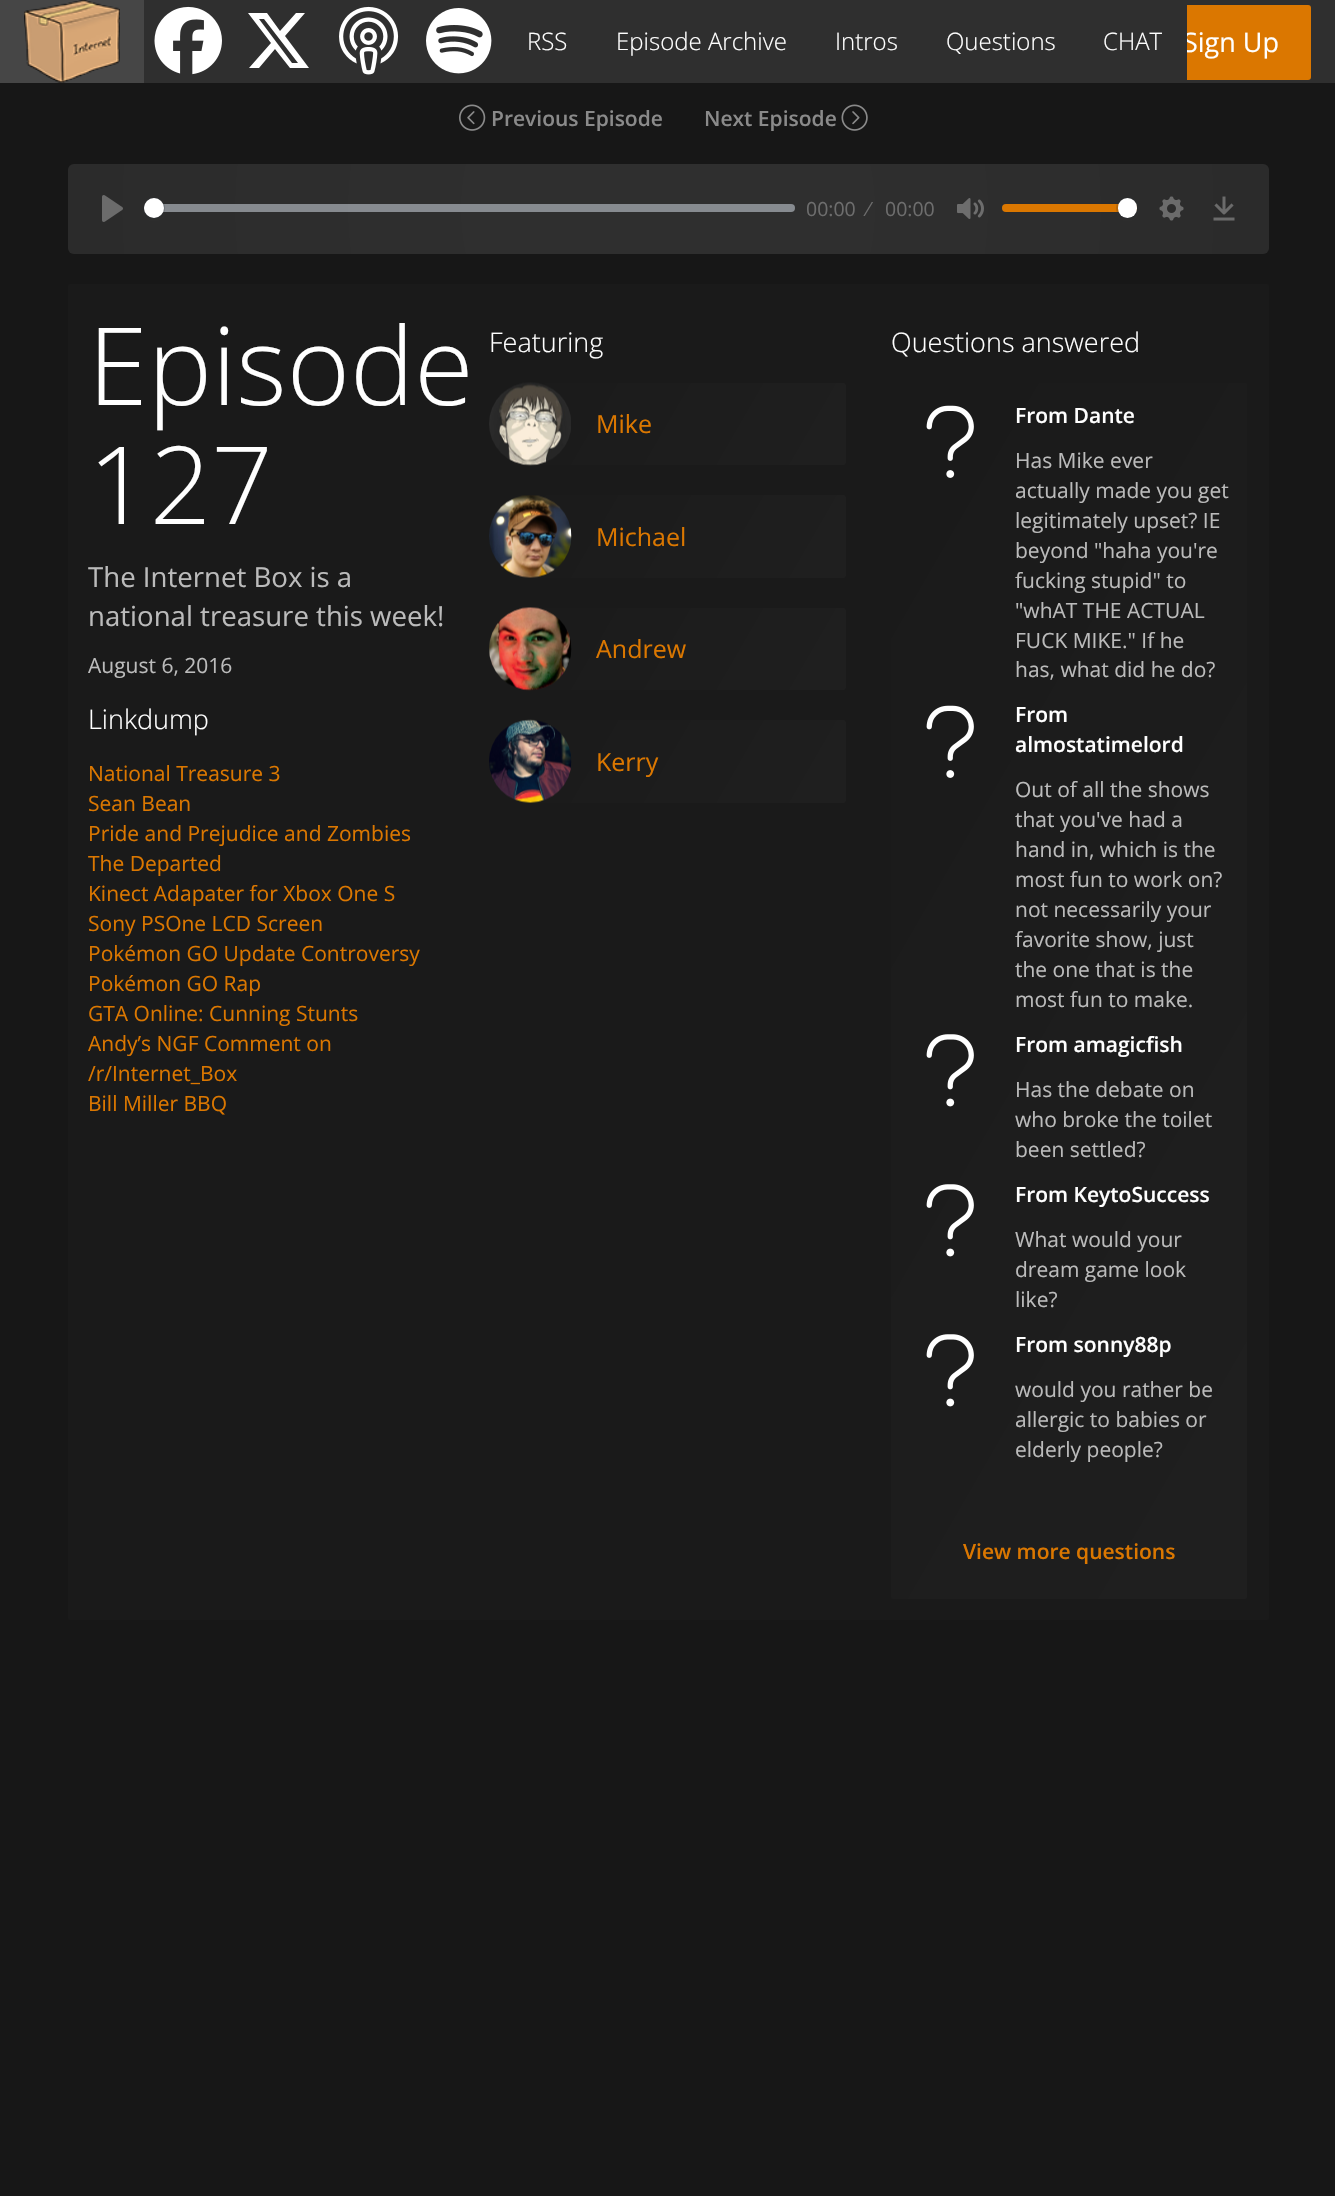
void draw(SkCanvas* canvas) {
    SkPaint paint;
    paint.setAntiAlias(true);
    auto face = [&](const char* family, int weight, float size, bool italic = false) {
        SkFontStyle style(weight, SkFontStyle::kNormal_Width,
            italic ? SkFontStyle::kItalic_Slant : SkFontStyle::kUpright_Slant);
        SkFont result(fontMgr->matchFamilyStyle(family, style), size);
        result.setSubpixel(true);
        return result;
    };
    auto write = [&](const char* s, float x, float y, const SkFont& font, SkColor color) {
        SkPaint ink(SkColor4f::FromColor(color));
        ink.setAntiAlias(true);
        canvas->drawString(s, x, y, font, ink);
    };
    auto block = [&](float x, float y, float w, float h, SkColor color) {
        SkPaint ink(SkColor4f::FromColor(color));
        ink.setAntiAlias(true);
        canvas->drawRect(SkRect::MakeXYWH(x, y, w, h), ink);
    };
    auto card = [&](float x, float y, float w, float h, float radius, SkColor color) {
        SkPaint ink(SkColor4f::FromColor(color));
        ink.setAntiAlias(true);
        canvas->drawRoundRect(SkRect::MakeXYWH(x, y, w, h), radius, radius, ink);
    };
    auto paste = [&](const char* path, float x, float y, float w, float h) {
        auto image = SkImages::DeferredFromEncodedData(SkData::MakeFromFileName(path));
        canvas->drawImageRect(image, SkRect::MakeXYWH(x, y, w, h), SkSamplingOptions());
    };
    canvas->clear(SkColorSetRGB(23, 23, 23));
    block(144, 0, 1191, 83, SkColorSetRGB(47, 47, 47));
    block(0, 0, 144, 83, SkColorSetRGB(70, 70, 70));
    paste("pic1.png", 24, 0, 96, 83);
    paste("pic2.png", 154, 6, 68, 69);
    paint.setColor(SK_ColorWHITE);
    canvas->drawPath(SkPathBuilder().moveTo(296, 13).lineTo(305, 13).lineTo(296, 13).lineTo(305, 13).lineTo(285, 36).lineTo(309, 68).lineTo(290, 68).lineTo(275, 49).lineTo(259, 68).lineTo(249, 68).lineTo(271, 43).lineTo(248, 13).lineTo(267, 13).lineTo(280, 31).close().moveTo(292, 63).lineTo(298, 63).lineTo(292, 63).lineTo(298, 63).lineTo(264, 19).lineTo(259, 19).close().detach(), paint);
    paste("pic3.png", 339, 6, 60, 69);
    paste("pic4.png", 426, 8, 66, 66);
    card(1112, 5, 199, 75, 3, SkColorSetRGB(219, 119, 0));
    auto kFont1 = face("Open Sans", 400, 27);
    write("Sign Up", 1183, 52, kFont1, SK_ColorWHITE);
    block(1112, 5, 75, 75, SkColorSetRGB(47, 47, 47));
    auto kFont2 = face("Open Sans", 300, 24);
    write("RSS", 527, 50, kFont2, SK_ColorWHITE);
    write("Episode Archive", 616, 50, kFont2, SK_ColorWHITE);
    write("Intros", 835, 50, kFont2, SK_ColorWHITE);
    write("Questions", 946, 50, kFont2, SK_ColorWHITE);
    write("CHAT", 1103, 50, kFont2, SK_ColorWHITE);
    paste("pic5.png", 459, 104, 27, 27);
    auto kFont3 = face("Open Sans", 600, 21);
    write("Previous Episode", 491, 126, kFont3, SkColorSetRGB(138, 138, 138));
    write("Next Episode", 704, 126, kFont3, SkColorSetRGB(138, 138, 138));
    paste("pic6.png", 841, 104, 27, 27);
    {
        const SkColor colors[] = {SkColorSetRGB(47, 47, 47), SkColorSetRGB(43, 43, 43)};
        const float stops[] = {0.25f, 1};
        paint.setShader(SkGradientShader::MakeRadial({668, 209}, 602, colors, stops, 2, SkTileMode::kClamp));
        paint.setAlpha(255);
    }
    canvas->drawRoundRect(SkRect::MakeXYWH(68, 164, 1201, 90), 6, 6, paint);
    paste("pic7.png", 102, 195, 21, 27);
    card(144, 204, 651, 8, 4, SkColorSetARGB(153, 193, 200, 209));
    paint.setStyle(SkPaint::kStroke_Style);
    paint.setStrokeWidth(2);
    paint.setShader(nullptr);
    paint.setColor(SkColorSetARGB(51, 35, 40, 47));
    canvas->drawCircle(154, 208, 10, paint);
    paint.setStyle(SkPaint::kFill_Style);
    paint.setColor(SkColorSetARGB(38, 35, 40, 47));
    paint.setMaskFilter(SkMaskFilter::MakeBlur(kNormal_SkBlurStyle, 1));
    canvas->drawRoundRect(SkRect::MakeXYWH(144, 200, 20, 19), 9.5f, 9.5f, paint);
    paint.setMaskFilter(nullptr);
    paint.setColor(SK_ColorWHITE);
    canvas->drawCircle(154, 208, 10, paint);
    auto kFont4 = face("Open Sans", 400, 19.5f);
    write("00:00", 806, 216, kFont4, SkColorSetRGB(109, 109, 109));
    write("⁄", 867, 216, kFont4, SkColorSetRGB(109, 109, 109));
    write("00:00", 885, 216, kFont4, SkColorSetRGB(109, 109, 109));
    paste("pic8.png", 957, 198, 27, 21);
    card(1002, 204, 135, 8, 4, SkColorSetRGB(219, 119, 0));
    paint.setStyle(SkPaint::kStroke_Style);
    paint.setColor(SkColorSetARGB(51, 35, 40, 47));
    canvas->drawRoundRect(SkRect::MakeXYWH(1117, 198, 21, 20), 10, 10, paint);
    paint.setStyle(SkPaint::kFill_Style);
    paint.setColor(SkColorSetARGB(38, 35, 40, 47));
    paint.setMaskFilter(SkMaskFilter::MakeBlur(kNormal_SkBlurStyle, 1));
    canvas->drawRoundRect(SkRect::MakeXYWH(1118, 200, 19, 19), 9.5f, 9.5f, paint);
    paint.setMaskFilter(nullptr);
    card(1118, 198, 19, 20, 9.5f, SK_ColorWHITE);
    paste("pic9.png", 1159, 196, 25, 25);
    paste("pic10.png", 1213, 196, 22, 25);
    card(68, 284, 1201, 1336, 3, SkColorSetRGB(26, 26, 26));
    auto kFont5 = face("Open Sans", 300, 108);
    write("Episode", 88, 405, kFont5, SK_ColorWHITE);
    write("127", 88, 524, kFont5, SK_ColorWHITE);
    auto kFont6 = face("Open Sans", 400, 27.6f);
    write("The Internet Box is a", 88, 587, kFont6, SkColorSetRGB(187, 187, 187));
    write("national treasure this week!", 88, 626, kFont6, SkColorSetRGB(187, 187, 187));
    auto kFont7 = face("Open Sans", 400, 21);
    write("August 6, 2016", 88, 673, kFont7, SkColorSetRGB(187, 187, 187));
    auto kFont8 = face("Open Sans", 300, 27);
    write("Linkdump", 88, 729, kFont8, SK_ColorWHITE);
    write("National Treasure 3", 88, 781, kFont7, SkColorSetRGB(219, 119, 0));
    write("Sean Bean", 88, 811, kFont7, SkColorSetRGB(219, 119, 0));
    write("Pride and Prejudice and Zombies", 88, 841, kFont7, SkColorSetRGB(219, 119, 0));
    write("The Departed", 88, 871, kFont7, SkColorSetRGB(219, 119, 0));
    write("Kinect Adapater for Xbox One S", 88, 901, kFont7, SkColorSetRGB(219, 119, 0));
    write("Sony PSOne LCD Screen", 88, 931, kFont7, SkColorSetRGB(219, 119, 0));
    write("Pokémon GO Update Controversy", 88, 961, kFont7, SkColorSetRGB(219, 119, 0));
    write("Pokémon GO Rap", 88, 991, kFont7, SkColorSetRGB(219, 119, 0));
    write("GTA Online: Cunning Stunts", 88, 1021, kFont7, SkColorSetRGB(219, 119, 0));
    write("Andy’s NGF Comment on", 88, 1051, kFont7, SkColorSetRGB(219, 119, 0));
    write("/r/Internet_Box", 88, 1081, kFont7, SkColorSetRGB(219, 119, 0));
    write("Bill Miller BBQ", 88, 1111, kFont7, SkColorSetRGB(219, 119, 0));
    write("Featuring", 489, 352, kFont8, SK_ColorWHITE);
    {
        const SkColor colors[] = {SkColorSetRGB(31, 31, 31), SkColorSetRGB(26, 26, 26)};
        const float stops[] = {0.05f, 0.95f};
        const SkPoint ends[] = {{819, 511}, {516, 336}};
        paint.setShader(SkGradientShader::MakeLinear(ends, colors, stops, 2, SkTileMode::kClamp));
        paint.setAlpha(255);
    }
    canvas->drawPath(SkPathBuilder().moveTo(530, 383).lineTo(843, 383).cubicTo(844.5f, 383, 846, 384.5f, 846, 386).lineTo(846, 462).cubicTo(846, 463.5f, 844.5f, 465, 843, 465).lineTo(530, 465).cubicTo(507.5f, 465, 489, 446.5f, 489, 424).cubicTo(489, 401.5f, 507.5f, 383, 530, 383).close().detach(), paint);
    paste("pic11.png", 489, 382, 82, 84);
    auto kFont9 = face("Open Sans", 400, 25);
    write("Mike", 596, 433, kFont9, SkColorSetRGB(219, 119, 0));
    {
        const SkColor colors[] = {SkColorSetRGB(31, 31, 31), SkColorSetRGB(26, 26, 26)};
        const float stops[] = {0.05f, 0.95f};
        const SkPoint ends[] = {{819, 624}, {516, 449}};
        paint.setShader(SkGradientShader::MakeLinear(ends, colors, stops, 2, SkTileMode::kClamp));
        paint.setAlpha(255);
    }
    canvas->drawPath(SkPathBuilder().moveTo(530.5f, 495).lineTo(843, 495).cubicTo(844.5f, 495, 846, 496.5f, 846, 498).lineTo(846, 575).cubicTo(846, 576.5f, 844.5f, 578, 843, 578).lineTo(530.5f, 578).cubicTo(507.5f, 578, 489, 559.5f, 489, 536.5f).cubicTo(489, 513.5f, 507.5f, 495, 530.5f, 495).close().detach(), paint);
    paste("pic12.png", 489, 495, 83, 83);
    write("Michael", 596, 546, kFont9, SkColorSetRGB(219, 119, 0));
    {
        const SkColor colors[] = {SkColorSetRGB(31, 31, 31), SkColorSetRGB(26, 26, 26)};
        const float stops[] = {0.05f, 0.95f};
        const SkPoint ends[] = {{819, 736}, {516, 561}};
        paint.setShader(SkGradientShader::MakeLinear(ends, colors, stops, 2, SkTileMode::kClamp));
        paint.setAlpha(255);
    }
    canvas->drawPath(SkPathBuilder().moveTo(530, 608).lineTo(843, 608).cubicTo(844.5f, 608, 846, 609.5f, 846, 611).lineTo(846, 687).cubicTo(846, 688.5f, 844.5f, 690, 843, 690).lineTo(530, 690).cubicTo(507.5f, 690, 489, 671.5f, 489, 649).cubicTo(489, 626.5f, 507.5f, 608, 530, 608).close().detach(), paint);
    paste("pic13.png", 489, 607, 83, 84);
    write("Andrew", 596, 658, kFont9, SkColorSetRGB(219, 119, 0));
    {
        const SkColor colors[] = {SkColorSetRGB(31, 31, 31), SkColorSetRGB(26, 26, 26)};
        const float stops[] = {0.05f, 0.95f};
        const SkPoint ends[] = {{819, 849}, {516, 674}};
        paint.setShader(SkGradientShader::MakeLinear(ends, colors, stops, 2, SkTileMode::kClamp));
        paint.setAlpha(255);
    }
    canvas->drawPath(SkPathBuilder().moveTo(530.5f, 720).lineTo(843, 720).cubicTo(844.5f, 720, 846, 721.5f, 846, 723).lineTo(846, 800).cubicTo(846, 801.5f, 844.5f, 803, 843, 803).lineTo(530.5f, 803).cubicTo(507.5f, 803, 489, 784.5f, 489, 761.5f).cubicTo(489, 738.5f, 507.5f, 720, 530.5f, 720).close().detach(), paint);
    paste("pic14.png", 489, 719, 83, 84);
    write("Kerry", 596, 771, kFont9, SkColorSetRGB(219, 119, 0));
    write("Questions answered", 891, 352, kFont8, SK_ColorWHITE);
    {
        const SkColor colors[] = {SkColorSetRGB(31, 31, 31), SkColorSetRGB(26, 26, 26)};
        const float stops[] = {0.05f, 0.95f};
        const SkPoint ends[] = {{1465, 1220}, {672, 762}};
        paint.setShader(SkGradientShader::MakeLinear(ends, colors, stops, 2, SkTileMode::kClamp));
        paint.setAlpha(255);
    }
    canvas->drawRoundRect(SkRect::MakeXYWH(891, 383, 356, 1216), 3, 3, paint);
    paste("pic15.png", 926, 405, 48, 73);
    write("From Dante", 1015, 423, kFont3, SK_ColorWHITE);
    write("Has Mike ever", 1015, 468, kFont7, SkColorSetRGB(187, 187, 187));
    write("actually made you get", 1015, 498, kFont7, SkColorSetRGB(187, 187, 187));
    write("legitimately upset? IE", 1015, 528, kFont7, SkColorSetRGB(187, 187, 187));
    write("beyond \"haha you're", 1015, 558, kFont7, SkColorSetRGB(187, 187, 187));
    write("fucking stupid\" to", 1015, 588, kFont7, SkColorSetRGB(187, 187, 187));
    write("\"whAT THE ACTUAL", 1015, 618, kFont7, SkColorSetRGB(187, 187, 187));
    write("FUCK MIKE.\" If he", 1015, 648, kFont7, SkColorSetRGB(187, 187, 187));
    write("has, what did he do?", 1015, 677, kFont7, SkColorSetRGB(187, 187, 187));
    paste("pic16.png", 926, 705, 48, 73);
    write("From", 1015, 722, kFont3, SK_ColorWHITE);
    write("almostatimelord", 1015, 752, kFont3, SK_ColorWHITE);
    write("Out of all the shows", 1015, 797, kFont7, SkColorSetRGB(187, 187, 187));
    write("that you've had a", 1015, 827, kFont7, SkColorSetRGB(187, 187, 187));
    write("hand in, which is the", 1015, 857, kFont7, SkColorSetRGB(187, 187, 187));
    write("most fun to work on?", 1015, 887, kFont7, SkColorSetRGB(187, 187, 187));
    write("not necessarily your", 1015, 917, kFont7, SkColorSetRGB(187, 187, 187));
    write("favorite show, just", 1015, 947, kFont7, SkColorSetRGB(187, 187, 187));
    write("the one that is the", 1015, 977, kFont7, SkColorSetRGB(187, 187, 187));
    write("most fun to make.", 1015, 1007, kFont7, SkColorSetRGB(187, 187, 187));
    paste("pic17.png", 926, 1034, 48, 73);
    write("From amagicfish", 1015, 1052, kFont3, SK_ColorWHITE);
    write("Has the debate on", 1015, 1097, kFont7, SkColorSetRGB(187, 187, 187));
    write("who broke the toilet", 1015, 1127, kFont7, SkColorSetRGB(187, 187, 187));
    write("been settled?", 1015, 1157, kFont7, SkColorSetRGB(187, 187, 187));
    paste("pic18.png", 926, 1184, 48, 73);
    write("From KeytoSuccess", 1015, 1202, kFont3, SK_ColorWHITE);
    write("What would your", 1015, 1247, kFont7, SkColorSetRGB(187, 187, 187));
    write("dream game look", 1015, 1277, kFont7, SkColorSetRGB(187, 187, 187));
    write("like?", 1015, 1307, kFont7, SkColorSetRGB(187, 187, 187));
    paste("pic19.png", 926, 1334, 48, 73);
    write("From sonny88p", 1015, 1352, kFont3, SK_ColorWHITE);
    write("would you rather be", 1015, 1397, kFont7, SkColorSetRGB(187, 187, 187));
    write("allergic to babies or", 1015, 1427, kFont7, SkColorSetRGB(187, 187, 187));
    write("elderly people?", 1015, 1457, kFont7, SkColorSetRGB(187, 187, 187));
    write("View more questions", 963, 1559, kFont3, SkColorSetRGB(219, 119, 0));
}
